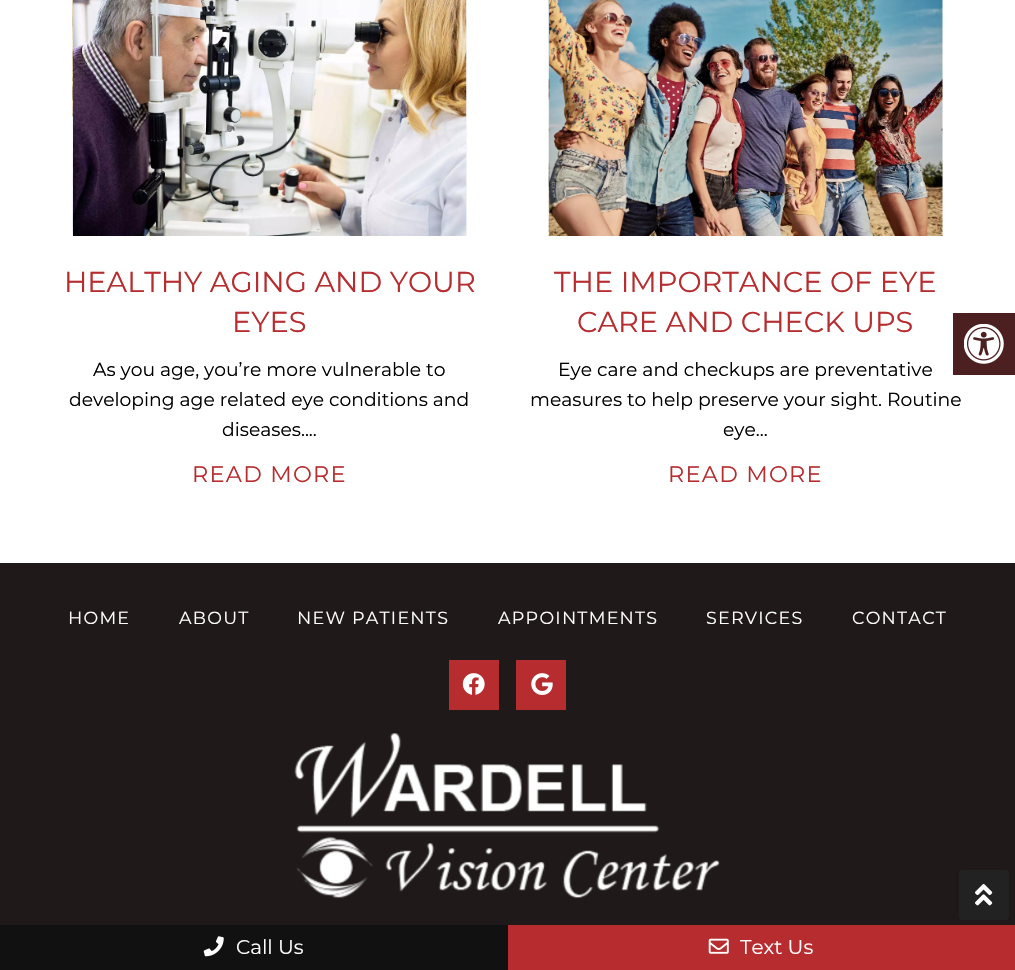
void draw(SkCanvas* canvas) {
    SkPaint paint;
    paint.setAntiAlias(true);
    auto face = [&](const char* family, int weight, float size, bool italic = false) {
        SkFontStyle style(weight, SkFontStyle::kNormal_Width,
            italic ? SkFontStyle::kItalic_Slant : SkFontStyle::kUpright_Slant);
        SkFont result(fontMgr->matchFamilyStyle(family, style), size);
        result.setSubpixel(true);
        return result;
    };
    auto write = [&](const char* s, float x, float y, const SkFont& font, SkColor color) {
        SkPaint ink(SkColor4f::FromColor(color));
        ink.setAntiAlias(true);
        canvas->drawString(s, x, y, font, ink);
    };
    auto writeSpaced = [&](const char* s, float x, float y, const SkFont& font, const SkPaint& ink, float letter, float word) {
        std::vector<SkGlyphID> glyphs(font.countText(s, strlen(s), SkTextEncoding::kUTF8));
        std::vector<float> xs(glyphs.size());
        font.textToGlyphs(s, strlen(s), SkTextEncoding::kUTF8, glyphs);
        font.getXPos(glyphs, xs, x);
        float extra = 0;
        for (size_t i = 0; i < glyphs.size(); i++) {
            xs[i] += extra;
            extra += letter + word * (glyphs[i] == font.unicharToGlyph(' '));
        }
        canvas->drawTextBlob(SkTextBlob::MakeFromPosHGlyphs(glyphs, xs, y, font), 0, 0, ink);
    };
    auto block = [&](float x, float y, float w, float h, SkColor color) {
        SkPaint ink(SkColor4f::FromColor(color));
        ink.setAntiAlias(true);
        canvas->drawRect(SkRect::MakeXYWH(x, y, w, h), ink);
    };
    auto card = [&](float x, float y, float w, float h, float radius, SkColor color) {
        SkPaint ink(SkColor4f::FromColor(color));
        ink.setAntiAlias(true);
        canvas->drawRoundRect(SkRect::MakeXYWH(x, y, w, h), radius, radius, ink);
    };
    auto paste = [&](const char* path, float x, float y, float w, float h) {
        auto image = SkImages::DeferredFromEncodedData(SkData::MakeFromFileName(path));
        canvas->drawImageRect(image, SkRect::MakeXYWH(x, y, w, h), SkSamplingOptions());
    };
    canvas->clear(SK_ColorWHITE);
    paste("pic1.png", 72, 0, 395, 236);
    auto kFont1 = face("Montserrat", 400, 28.75f);
    write("HEALTHY AGING AND YOUR", 64, 292, kFont1, SkColorSetRGB(182, 44, 47));
    write("EYES", 232, 332, kFont1, SkColorSetRGB(182, 44, 47));
    auto kFont2 = face("Montserrat", 400, 18.75f);
    write("As you age, you’re more vulnerable to", 93, 376, kFont2, SK_ColorBLACK);
    write("developing age related eye conditions and", 69, 406, kFont2, SK_ColorBLACK);
    write("diseases....", 222, 436, kFont2, SK_ColorBLACK);
    auto kFont3 = face("Montserrat", 400, 22.5f);
    paint.setColor(SkColorSetRGB(182, 44, 47));
    writeSpaced("READ MORE", 192, 482, kFont3, paint, 1.25f, 0);
    paste("pic2.png", 548, 0, 395, 236);
    write("THE IMPORTANCE OF EYE", 554, 292, kFont1, SkColorSetRGB(182, 44, 47));
    write("CARE AND CHECK UPS", 577, 332, kFont1, SkColorSetRGB(182, 44, 47));
    write("Eye care and checkups are preventative", 558, 376, kFont2, SK_ColorBLACK);
    write("measures to help preserve your sight. Routine", 530, 406, kFont2, SK_ColorBLACK);
    write("eye...", 723, 436, kFont2, SK_ColorBLACK);
    writeSpaced("READ MORE", 668, 482, kFont3, paint, 1.25f, 0);
    block(0, 563, 1015, 362, SkColorSetRGB(31, 25, 25));
    auto kFont4 = face("Montserrat", 400, 17.5f);
    paint.setColor(SK_ColorWHITE);
    writeSpaced("HOME", 68, 624, kFont4, paint, 1.25f, 0);
    writeSpaced("ABOUT", 179, 624, kFont4, paint, 1.25f, 0);
    writeSpaced("NEW PATIENTS", 297, 624, kFont4, paint, 1.25f, 0);
    writeSpaced("APPOINTMENTS", 498, 624, kFont4, paint, 1.25f, 0);
    writeSpaced("SERVICES", 706, 624, kFont4, paint, 1.25f, 0);
    writeSpaced("CONTACT", 852, 624, kFont4, paint, 1.25f, 0);
    block(449, 660, 50, 50, SkColorSetRGB(182, 44, 47));
    paste("pic3.png", 462, 673, 23, 22);
    block(516, 660, 50, 50, SkColorSetRGB(182, 44, 47));
    paste("pic4.png", 531, 673, 22, 22);
    paste("pic5.png", 294, 733, 426, 166);
    block(953, 313, 62, 62, SkColorSetRGB(76, 31, 32));
    paste("pic6.png", 964, 324, 40, 40);
    card(959, 870, 50, 50, 4, SkColorSetRGB(34, 34, 34));
    paste("pic7.png", 975, 884, 18, 22);
    block(0, 925, 508, 45, SkColorSetRGB(17, 17, 17));
    paste("pic8.png", 203, 936, 21, 21);
    auto kFont5 = face("Montserrat", 400, 20);
    write("Call Us", 236, 954, kFont5, SK_ColorWHITE);
    block(508, 925, 507, 45, SkColorSetRGB(182, 44, 47));
    paste("pic9.png", 708, 938, 21, 16);
    write("Text Us", 740, 954, kFont5, SK_ColorWHITE);
}
